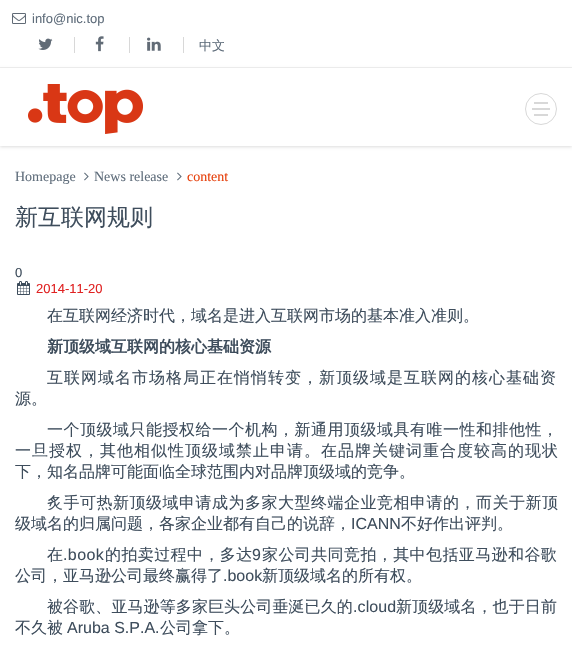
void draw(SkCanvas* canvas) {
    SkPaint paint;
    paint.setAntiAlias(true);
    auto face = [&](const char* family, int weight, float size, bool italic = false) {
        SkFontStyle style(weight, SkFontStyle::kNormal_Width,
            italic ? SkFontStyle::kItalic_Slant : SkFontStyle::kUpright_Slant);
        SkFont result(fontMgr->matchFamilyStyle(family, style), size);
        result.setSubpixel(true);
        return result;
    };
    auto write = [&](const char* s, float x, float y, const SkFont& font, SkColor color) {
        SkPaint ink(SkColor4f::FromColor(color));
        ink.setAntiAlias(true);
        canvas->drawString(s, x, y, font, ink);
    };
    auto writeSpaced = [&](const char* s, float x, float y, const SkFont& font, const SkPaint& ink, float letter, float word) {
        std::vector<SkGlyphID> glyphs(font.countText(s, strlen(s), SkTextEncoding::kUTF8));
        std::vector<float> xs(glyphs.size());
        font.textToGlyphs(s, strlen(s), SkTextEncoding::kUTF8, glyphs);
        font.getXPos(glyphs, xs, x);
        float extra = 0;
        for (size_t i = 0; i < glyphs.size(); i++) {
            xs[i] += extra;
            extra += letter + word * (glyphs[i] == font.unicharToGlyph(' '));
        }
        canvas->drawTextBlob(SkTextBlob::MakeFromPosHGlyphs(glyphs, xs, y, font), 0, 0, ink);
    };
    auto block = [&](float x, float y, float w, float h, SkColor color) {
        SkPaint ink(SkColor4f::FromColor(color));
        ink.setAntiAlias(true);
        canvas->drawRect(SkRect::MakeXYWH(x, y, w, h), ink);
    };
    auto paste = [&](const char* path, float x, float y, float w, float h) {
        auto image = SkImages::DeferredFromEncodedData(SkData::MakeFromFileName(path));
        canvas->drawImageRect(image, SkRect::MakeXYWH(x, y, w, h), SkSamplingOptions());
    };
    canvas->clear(SK_ColorWHITE);
    block(0, 67, 572, 1, SkColorSetRGB(238, 238, 238));
    paste("pic1.png", 12, 13, 14, 11);
    auto kFont1 = face("Liberation Sans", 400, 13);
    write("info@nic.top", 32, 23, kFont1, SkColorSetRGB(95, 109, 123));
    block(74, 37, 1, 16, SkColorSetRGB(216, 216, 216));
    paste("pic2.png", 38, 38, 15, 12);
    block(129, 37, 1, 16, SkColorSetRGB(216, 216, 216));
    paste("pic3.png", 95, 36, 9, 16);
    block(183, 37, 1, 16, SkColorSetRGB(216, 216, 216));
    paste("pic4.png", 147, 37, 14, 14);
    auto kFont2 = face("WenQuanYi Zen Hei", 500, 13);
    write("中文", 199, 50, kFont2, SkColorSetRGB(95, 109, 123));
    canvas->save();
    canvas->clipPath(SkPathBuilder(SkPathFillType::kEvenOdd).moveTo(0, 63).lineTo(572, 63).lineTo(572, 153).lineTo(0, 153).close().moveTo(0, 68).lineTo(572, 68).lineTo(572, 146).lineTo(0, 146).close().detach(), true);
    paint.setColor(SkColorSetRGB(221, 221, 221));
    paint.setMaskFilter(SkMaskFilter::MakeBlur(kNormal_SkBlurStyle, 1.5f));
    canvas->drawRect(SkRect::MakeXYWH(0, 69, 572, 78), paint);
    paint.setMaskFilter(nullptr);
    canvas->restore();
    paste("pic5.png", 28, 84, 115, 50);
    paste("pic6.png", 532, 102, 18, 14);
    paint.setStyle(SkPaint::kStroke_Style);
    paint.setStrokeWidth(1);
    paint.setColor(SkColorSetRGB(216, 216, 216));
    canvas->drawCircle(541, 109, 15.5f, paint);
    auto kFont3 = face("Liberation Serif", 400, 14);
    write("Homepage", 15, 181, kFont3, SkColorSetRGB(95, 109, 123));
    paste("pic7.png", 84, 172, 5, 9);
    write("News release", 94, 181, kFont3, SkColorSetRGB(95, 109, 123));
    paste("pic7.png", 177, 172, 5, 9);
    write("content", 187, 181, kFont3, SkColorSetRGB(230, 64, 12));
    auto kFont4 = face("WenQuanYi Zen Hei", 500, 23);
    write("新互联网规则", 15, 225, kFont4, SkColorSetRGB(62, 77, 92));
    write("0", 15, 277, kFont1, SkColorSetRGB(62, 77, 92));
    paste("pic8.png", 17, 281, 13, 14);
    write("2014-11-20", 36, 293, kFont1, SkColorSetRGB(224, 34, 34));
    auto kFont5 = face("WenQuanYi Zen Hei", 500, 16);
    write("在互联网经济时代，域名是进入互联网市场的基本准入准则。", 47, 321, kFont5, SkColorSetRGB(62, 77, 92));
    auto kFont6 = face("WenQuanYi Zen Hei", 700, 16);
    write("新顶级域互联网的核心基础资源", 47, 352, kFont6, SkColorSetRGB(62, 77, 92));
    paint.setStyle(SkPaint::kFill_Style);
    paint.setColor(SkColorSetRGB(62, 77, 92));
    writeSpaced("互联网域名市场格局正在悄悄转变，新顶级域是互联网的核心基础资", 47, 383, kFont5, paint, 1, 0);
    write("源。", 15, 404, kFont5, SkColorSetRGB(62, 77, 92));
    writeSpaced("一个顶级域只能授权给一个机构，新通用顶级域具有唯一性和排他性，", 47, 435, kFont5, paint, 0.5f, 0);
    writeSpaced("一旦授权，其他相似性顶级域禁止申请。在品牌关键词重合度较高的现状", 15, 456, kFont5, paint, 1, 0);
    write("下，知名品牌可能面临全球范围内对品牌顶级域的竞争。", 15, 477, kFont5, SkColorSetRGB(62, 77, 92));
    writeSpaced("炙手可热新顶级域申请成为多家大型终端企业竞相申请的，而关于新顶", 47, 508, kFont5, paint, 0.5f, 0);
    write("级域名的归属问题，各家企业都有自己的说辞，", 15, 529, kFont5, SkColorSetRGB(62, 77, 92));
    auto kFont7 = face("Liberation Sans", 400, 16);
    write("ICANN", 351, 529, kFont7, SkColorSetRGB(62, 77, 92));
    write("不好作出评判。", 401, 529, kFont5, SkColorSetRGB(62, 77, 92));
    writeSpaced("在", 47, 560, kFont5, paint, 0.4f, 0);
    writeSpaced(".book", 63, 560, kFont7, paint, 0.4f, 0);
    writeSpaced("的拍卖过程中，多达", 105, 560, kFont5, paint, 0.4f, 0);
    writeSpaced("9", 252, 560, kFont7, paint, 0.4f, 0);
    writeSpaced("家公司共同竞拍，其中包括亚马逊和谷歌", 262, 560, kFont5, paint, 0.4f, 0);
    write("公司，亚马逊公司最终赢得了", 15, 581, kFont5, SkColorSetRGB(62, 77, 92));
    write(".book", 223, 581, kFont7, SkColorSetRGB(62, 77, 92));
    write("新顶级域名的所有权。", 262, 581, kFont5, SkColorSetRGB(62, 77, 92));
    writeSpaced("被谷歌、亚马逊等多家巨头公司垂涎已久的", 47, 612, kFont5, paint, 0.1f, 0);
    writeSpaced(".cloud", 353, 612, kFont7, paint, 0.1f, 0);
    writeSpaced("新顶级域名，也于日前", 396, 612, kFont5, paint, 0.1f, 0);
    write("不久被", 15, 633, kFont5, SkColorSetRGB(62, 77, 92));
    write("Aruba S.P.A.", 67, 633, kFont7, SkColorSetRGB(62, 77, 92));
    write("公司拿下。", 160, 633, kFont5, SkColorSetRGB(62, 77, 92));
}
